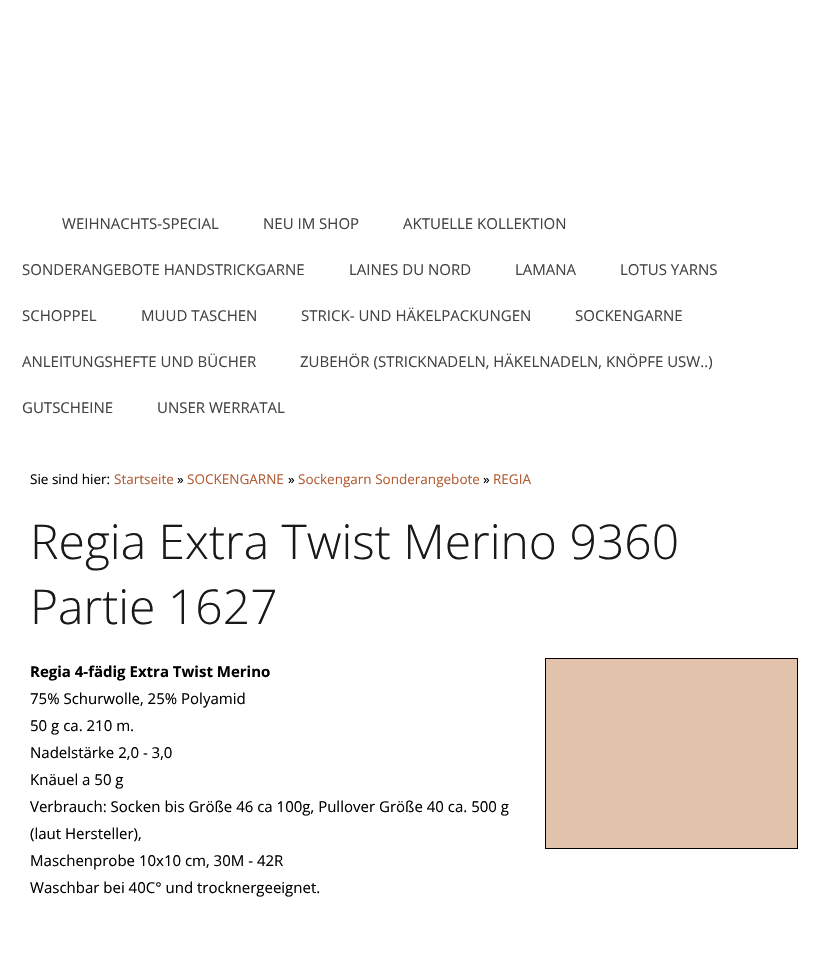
void draw(SkCanvas* canvas) {
    SkPaint paint;
    paint.setAntiAlias(true);
    auto face = [&](const char* family, int weight, float size, bool italic = false) {
        SkFontStyle style(weight, SkFontStyle::kNormal_Width,
            italic ? SkFontStyle::kItalic_Slant : SkFontStyle::kUpright_Slant);
        SkFont result(fontMgr->matchFamilyStyle(family, style), size);
        result.setSubpixel(true);
        return result;
    };
    auto write = [&](const char* s, float x, float y, const SkFont& font, SkColor color) {
        SkPaint ink(SkColor4f::FromColor(color));
        ink.setAntiAlias(true);
        canvas->drawString(s, x, y, font, ink);
    };
    canvas->clear(SK_ColorWHITE);
    auto kFont1 = face("Open Sans", 400, 15);
    write("WEIHNACHTS-SPECIAL", 62, 229, kFont1, SkColorSetRGB(68, 67, 67));
    write("NEU IM SHOP", 263, 229, kFont1, SkColorSetRGB(68, 67, 67));
    write("AKTUELLE KOLLEKTION", 403, 229, kFont1, SkColorSetRGB(68, 67, 67));
    write("SONDERANGEBOTE HANDSTRICKGARNE", 22, 275, kFont1, SkColorSetRGB(68, 67, 67));
    write("LAINES DU NORD", 349, 275, kFont1, SkColorSetRGB(68, 67, 67));
    write("LAMANA", 515, 275, kFont1, SkColorSetRGB(68, 67, 67));
    write("LOTUS YARNS", 620, 275, kFont1, SkColorSetRGB(68, 67, 67));
    write("SCHOPPEL", 22, 321, kFont1, SkColorSetRGB(68, 67, 67));
    write("MUUD TASCHEN", 141, 321, kFont1, SkColorSetRGB(68, 67, 67));
    write("STRICK- UND HÄKELPACKUNGEN", 301, 321, kFont1, SkColorSetRGB(68, 67, 67));
    write("SOCKENGARNE", 575, 321, kFont1, SkColorSetRGB(68, 67, 67));
    write("ANLEITUNGSHEFTE UND BÜCHER", 22, 367, kFont1, SkColorSetRGB(68, 67, 67));
    write("ZUBEHÖR (STRICKNADELN, HÄKELNADELN, KNÖPFE USW..)", 300, 367, kFont1, SkColorSetRGB(68, 67, 67));
    write("GUTSCHEINE", 22, 413, kFont1, SkColorSetRGB(68, 67, 67));
    write("UNSER WERRATAL", 157, 413, kFont1, SkColorSetRGB(68, 67, 67));
    auto kFont2 = face("Open Sans", 400, 13.5f);
    write("Sie sind hier:", 30, 484, kFont2, SK_ColorBLACK);
    write("Startseite", 114, 484, kFont2, SkColorSetRGB(178, 93, 53));
    write("»", 177, 484, kFont2, SK_ColorBLACK);
    write("SOCKENGARNE", 187, 484, kFont2, SkColorSetRGB(178, 93, 53));
    write("»", 288, 484, kFont2, SK_ColorBLACK);
    write("Sockengarn Sonderangebote", 298, 484, kFont2, SkColorSetRGB(178, 93, 53));
    write("»", 483, 484, kFont2, SK_ColorBLACK);
    write("REGIA", 493, 484, kFont2, SkColorSetRGB(178, 93, 53));
    auto kFont3 = face("Open Sans", 300, 48);
    write("Regia Extra Twist Merino 9360", 30, 559, kFont3, SkColorSetRGB(25, 25, 24));
    write("Partie 1627", 30, 624, kFont3, SkColorSetRGB(25, 25, 24));
    auto kFont4 = face("Open Sans", 700, 15);
    write("Regia 4-fädig Extra Twist Merino", 30, 677, kFont4, SK_ColorBLACK);
    write("75% Schurwolle, 25% Polyamid", 30, 704, kFont1, SK_ColorBLACK);
    write("50 g ca. 210 m.", 30, 731, kFont1, SK_ColorBLACK);
    write("Nadelstärke 2,0 - 3,0", 30, 758, kFont1, SK_ColorBLACK);
    write("Knäuel a 50 g", 30, 785, kFont1, SK_ColorBLACK);
    write("Verbrauch: Socken bis Größe 46 ca 100g, Pullover Größe 40 ca. 500 g", 30, 812, kFont1, SK_ColorBLACK);
    write("(laut Hersteller),", 30, 839, kFont1, SK_ColorBLACK);
    write("Maschenprobe 10x10 cm, 30M - 42R", 30, 866, kFont1, SK_ColorBLACK);
    write("Waschbar bei 40C° und trocknergeeignet.", 30, 893, kFont1, SK_ColorBLACK);
    paint.setColor(SkColorSetRGB(226, 194, 171));
    canvas->drawRect(SkRect::MakeXYWH(545.5f, 658.5f, 252, 190), paint);
    paint.setStyle(SkPaint::kStroke_Style);
    paint.setStrokeWidth(1);
    paint.setColor(SK_ColorBLACK);
    canvas->drawRect(SkRect::MakeXYWH(545.5f, 658.5f, 252, 190), paint);
}
